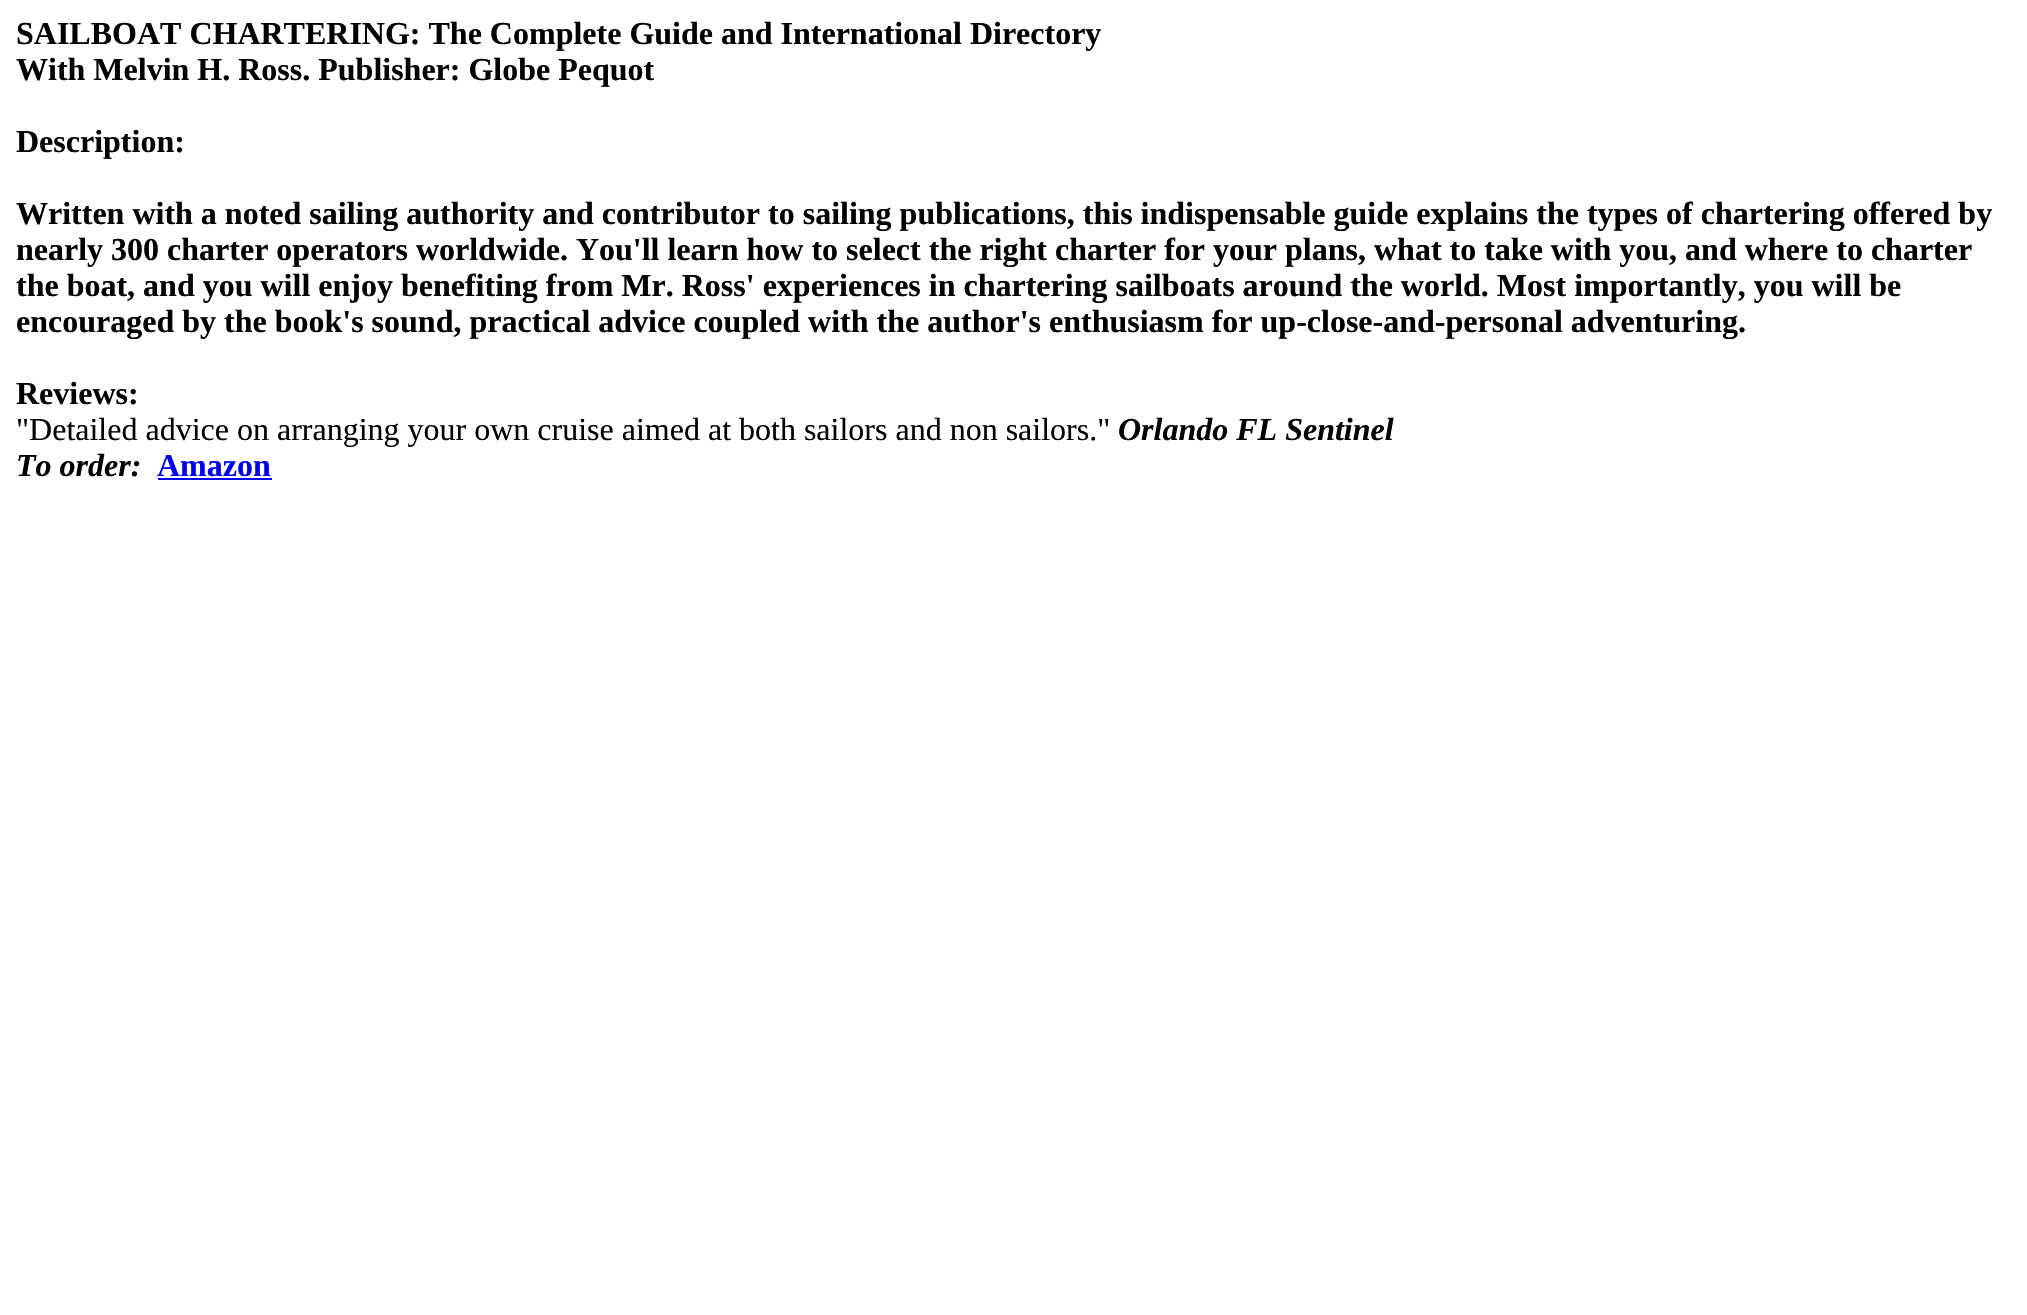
void draw(SkCanvas* canvas) {
    SkPaint paint;
    paint.setAntiAlias(true);
    auto face = [&](const char* family, int weight, float size, bool italic = false) {
        SkFontStyle style(weight, SkFontStyle::kNormal_Width,
            italic ? SkFontStyle::kItalic_Slant : SkFontStyle::kUpright_Slant);
        SkFont result(fontMgr->matchFamilyStyle(family, style), size);
        result.setSubpixel(true);
        return result;
    };
    auto write = [&](const char* s, float x, float y, const SkFont& font, SkColor color) {
        SkPaint ink(SkColor4f::FromColor(color));
        ink.setAntiAlias(true);
        canvas->drawString(s, x, y, font, ink);
    };
    auto block = [&](float x, float y, float w, float h, SkColor color) {
        SkPaint ink(SkColor4f::FromColor(color));
        ink.setAntiAlias(true);
        canvas->drawRect(SkRect::MakeXYWH(x, y, w, h), ink);
    };
    canvas->clear(SK_ColorWHITE);
    auto kFont1 = face("Liberation Serif", 700, 32);
    write("SAILBOAT CHARTERING: The Complete Guide and International Directory", 16, 44, kFont1, SK_ColorBLACK);
    write("With Melvin H. Ross. Publisher: Globe Pequot", 16, 80, kFont1, SK_ColorBLACK);
    write("Description:", 16, 152, kFont1, SK_ColorBLACK);
    write("Written with a noted sailing authority and contributor to sailing publications, this indispensable guide explains the types of chartering offered by", 16, 224, kFont1, SK_ColorBLACK);
    write("nearly 300 charter operators worldwide. You'll learn how to select the right charter for your plans, what to take with you, and where to charter", 16, 260, kFont1, SK_ColorBLACK);
    write("the boat, and you will enjoy benefiting from Mr. Ross' experiences in chartering sailboats around the world. Most importantly, you will be", 16, 296, kFont1, SK_ColorBLACK);
    write("encouraged by the book's sound, practical advice coupled with the author's enthusiasm for up-close-and-personal adventuring.", 16, 332, kFont1, SK_ColorBLACK);
    write("Reviews:", 16, 404, kFont1, SK_ColorBLACK);
    auto kFont2 = face("Liberation Serif", 400, 32);
    write("\"Detailed advice on arranging your own cruise aimed at both sailors and non sailors.\"", 16, 440, kFont2, SK_ColorBLACK);
    auto kFont3 = face("Liberation Serif", 700, 32, true);
    write("Orlando FL Sentinel", 1118, 440, kFont3, SK_ColorBLACK);
    write("To order:", 16, 476, kFont3, SK_ColorBLACK);
    write("Amazon", 157, 476, kFont1, SkColorSetRGB(0, 0, 238));
    block(158, 478, 114, 2, SkColorSetRGB(0, 0, 238));
}
